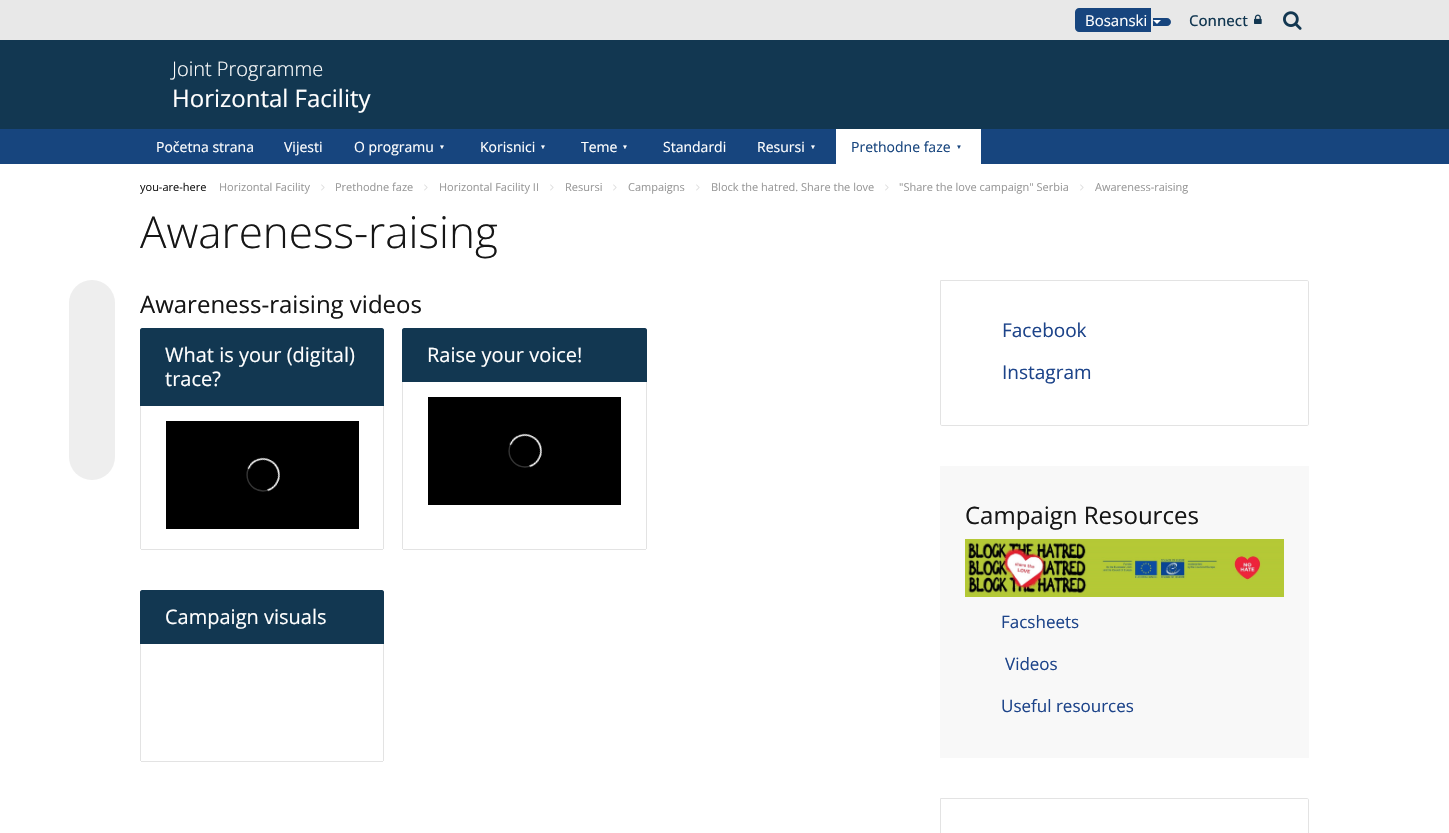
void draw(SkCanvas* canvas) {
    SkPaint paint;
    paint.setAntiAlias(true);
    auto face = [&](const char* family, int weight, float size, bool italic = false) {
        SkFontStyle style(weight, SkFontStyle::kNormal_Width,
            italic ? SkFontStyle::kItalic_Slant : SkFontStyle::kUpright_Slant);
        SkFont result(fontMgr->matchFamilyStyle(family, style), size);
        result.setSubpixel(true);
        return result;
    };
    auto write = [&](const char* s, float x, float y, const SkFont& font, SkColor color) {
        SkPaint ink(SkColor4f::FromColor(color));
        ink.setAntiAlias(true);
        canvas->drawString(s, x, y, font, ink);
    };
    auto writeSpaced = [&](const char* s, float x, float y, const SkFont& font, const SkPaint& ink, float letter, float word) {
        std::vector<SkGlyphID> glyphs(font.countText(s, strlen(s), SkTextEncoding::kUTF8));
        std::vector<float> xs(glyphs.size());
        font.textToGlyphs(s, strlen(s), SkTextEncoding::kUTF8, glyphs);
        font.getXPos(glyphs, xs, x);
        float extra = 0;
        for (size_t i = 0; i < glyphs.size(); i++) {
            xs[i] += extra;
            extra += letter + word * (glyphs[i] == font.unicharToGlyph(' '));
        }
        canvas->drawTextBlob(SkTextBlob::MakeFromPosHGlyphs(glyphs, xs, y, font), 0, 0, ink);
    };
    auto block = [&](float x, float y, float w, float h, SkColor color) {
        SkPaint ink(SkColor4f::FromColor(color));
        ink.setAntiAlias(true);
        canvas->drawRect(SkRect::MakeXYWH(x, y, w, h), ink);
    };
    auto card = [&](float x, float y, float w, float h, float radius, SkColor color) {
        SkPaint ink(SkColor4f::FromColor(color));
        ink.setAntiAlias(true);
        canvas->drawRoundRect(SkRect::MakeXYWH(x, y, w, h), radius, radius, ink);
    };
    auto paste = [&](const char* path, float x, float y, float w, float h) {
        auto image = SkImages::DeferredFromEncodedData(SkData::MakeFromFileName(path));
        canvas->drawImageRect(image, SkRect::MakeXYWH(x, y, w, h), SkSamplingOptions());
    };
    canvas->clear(SK_ColorWHITE);
    block(0, 0, 1449, 40, SkColorSetRGB(232, 232, 232));
    paint.setColor(SkColorSetRGB(23, 69, 126));
    canvas->drawPath(SkPathBuilder().moveTo(1079, 8).lineTo(1151, 8).lineTo(1151, 32).lineTo(1079, 32).cubicTo(1077, 32, 1075, 30, 1075, 28).lineTo(1075, 12).cubicTo(1075, 10, 1077, 8, 1079, 8).close().detach(), paint);
    canvas->drawPath(SkPathBuilder().moveTo(1153, 18).lineTo(1167, 18).cubicTo(1169, 18, 1171, 20, 1171, 22).cubicTo(1171, 24, 1169, 26, 1167, 26).lineTo(1153, 26).close().detach(), paint);
    auto kFont1 = face("Open Sans", 400, 15);
    write("Bosanski", 1085, 26, kFont1, SK_ColorWHITE);
    paint.setColor(SK_ColorWHITE);
    canvas->drawPath(SkPathBuilder().moveTo(1153, 20).lineTo(1161, 20).lineTo(1157, 24).close().detach(), paint);
    auto kFont2 = face("Open Sans", 500, 15);
    write("Connect", 1189, 26, kFont2, SkColorSetRGB(18, 55, 81));
    paste("pic1.png", 1254, 14, 8, 10);
    paste("pic2.png", 1283, 11, 19, 19);
    block(0, 40, 1449, 89, SkColorSetRGB(18, 55, 81));
    auto kFont3 = face("Open Sans", 300, 20);
    write("Joint Programme", 172, 76, kFont3, SK_ColorWHITE);
    auto kFont4 = face("Open Sans", 400, 24);
    write("Horizontal Facility", 172, 107, kFont4, SK_ColorWHITE);
    block(0, 129, 1449, 35, SkColorSetRGB(23, 69, 126));
    auto kFont5 = face("Open Sans", 400, 14);
    write("Početna strana", 156, 152, kFont5, SK_ColorWHITE);
    write("Vijesti", 284, 152, kFont5, SK_ColorWHITE);
    write("O programu", 354, 152, kFont5, SK_ColorWHITE);
    auto kFont6 = face("Liberation Sans", 400, 6);
    writeSpaced("▼", 439, 149, kFont6, paint, 4, 0);
    write("Korisnici", 480, 152, kFont5, SK_ColorWHITE);
    writeSpaced("▼", 540, 149, kFont6, paint, 4, 0);
    write("Teme", 581, 152, kFont5, SK_ColorWHITE);
    writeSpaced("▼", 622, 149, kFont6, paint, 4, 0);
    write("Standardi", 663, 152, kFont5, SK_ColorWHITE);
    write("Resursi", 757, 152, kFont5, SK_ColorWHITE);
    writeSpaced("▼", 810, 149, kFont6, paint, 4, 0);
    block(836, 129, 145, 35, SK_ColorWHITE);
    write("Prethodne faze", 851, 152, kFont5, SkColorSetRGB(23, 69, 126));
    paint.setColor(SkColorSetRGB(23, 69, 126));
    writeSpaced("▼", 956, 149, kFont6, paint, 4, 0);
    auto kFont7 = face("Open Sans", 400, 11);
    write("you-are-here", 140, 191, kFont7, SkColorSetRGB(22, 22, 22));
    write("Horizontal Facility", 219, 191, kFont7, SkColorSetRGB(153, 153, 153));
    paste("pic3.png", 321, 184, 4, 7);
    write("Prethodne faze", 335, 191, kFont7, SkColorSetRGB(153, 153, 153));
    paste("pic3.png", 424, 184, 4, 7);
    write("Horizontal Facility II", 439, 191, kFont7, SkColorSetRGB(153, 153, 153));
    paste("pic3.png", 550, 184, 4, 7);
    write("Resursi", 565, 191, kFont7, SkColorSetRGB(153, 153, 153));
    paste("pic3.png", 613, 184, 4, 7);
    write("Campaigns", 628, 191, kFont7, SkColorSetRGB(153, 153, 153));
    paste("pic3.png", 696, 184, 4, 7);
    write("Block the hatred. Share the love", 711, 191, kFont7, SkColorSetRGB(153, 153, 153));
    paste("pic3.png", 885, 184, 4, 7);
    write("\"Share the love campaign\" Serbia", 899, 191, kFont7, SkColorSetRGB(153, 153, 153));
    paste("pic3.png", 1080, 184, 4, 7);
    write("Awareness-raising", 1095, 191, kFont7, SkColorSetRGB(153, 153, 153));
    auto kFont8 = face("Open Sans", 300, 44);
    write("Awareness-raising", 140, 248, kFont8, SkColorSetRGB(22, 22, 22));
    card(69, 280, 46, 200, 23, SkColorSetRGB(238, 238, 238));
    write("Awareness-raising videos", 140, 313, kFont4, SkColorSetRGB(22, 22, 22));
    paint.setColor(SkColorSetRGB(18, 55, 81));
    canvas->drawPath(SkPathBuilder().moveTo(142, 328).lineTo(382, 328).cubicTo(383, 328, 384, 329, 384, 330).lineTo(384, 406).lineTo(140, 406).lineTo(140, 330).cubicTo(140, 329, 141, 328, 142, 328).close().detach(), paint);
    auto kFont9 = face("Open Sans", 400, 20);
    write("What is your (digital)", 165, 362, kFont9, SK_ColorWHITE);
    write("trace?", 165, 386, kFont9, SK_ColorWHITE);
    block(383, 406, 1, 143, SkColorSetRGB(227, 227, 227));
    block(141, 549, 242, 1, SkColorSetRGB(227, 227, 227));
    block(140, 406, 1, 143, SkColorSetRGB(227, 227, 227));
    paste("pic4.png", 166, 421, 193, 108);
    canvas->drawPath(SkPathBuilder().moveTo(404, 328).lineTo(645, 328).cubicTo(646, 328, 647, 329, 647, 330).lineTo(647, 382).lineTo(402, 382).lineTo(402, 330).cubicTo(402, 329, 403, 328, 404, 328).close().detach(), paint);
    write("Raise your voice!", 427, 362, kFont9, SK_ColorWHITE);
    block(646, 382, 1, 167, SkColorSetRGB(227, 227, 227));
    block(403, 549, 243, 1, SkColorSetRGB(227, 227, 227));
    block(402, 382, 1, 167, SkColorSetRGB(227, 227, 227));
    paste("pic5.png", 428, 397, 193, 108);
    canvas->drawPath(SkPathBuilder().moveTo(142, 590).lineTo(382, 590).cubicTo(383, 590, 384, 591, 384, 592).lineTo(384, 644).lineTo(140, 644).lineTo(140, 592).cubicTo(140, 591, 141, 590, 142, 590).close().detach(), paint);
    write("Campaign visuals", 165, 624, kFont9, SK_ColorWHITE);
    block(383, 644, 1, 117, SkColorSetRGB(227, 227, 227));
    block(141, 761, 242, 1, SkColorSetRGB(227, 227, 227));
    block(140, 644, 1, 117, SkColorSetRGB(227, 227, 227));
    paint.setStyle(SkPaint::kStroke_Style);
    paint.setStrokeWidth(1);
    paint.setColor(SkColorSetRGB(227, 227, 227));
    canvas->drawPath(SkPathBuilder().moveTo(940.5f, 280.5f).lineTo(1307, 280.5f).cubicTo(1308, 280.5f, 1308.5f, 281, 1308.5f, 282).lineTo(1308.5f, 424).cubicTo(1308.5f, 425, 1308, 425.5f, 1307, 425.5f).lineTo(942, 425.5f).cubicTo(941, 425.5f, 940.5f, 425, 940.5f, 424).close().detach(), paint);
    auto kFont10 = face("Open Sans", 400, 19);
    write("Facebook", 1002, 337, kFont10, SkColorSetRGB(29, 68, 138));
    write("Instagram", 1002, 379, kFont10, SkColorSetRGB(29, 68, 138));
    block(940, 466, 369, 292, SkColorSetRGB(248, 248, 248));
    write("Campaign Resources", 965, 524, kFont4, SkColorSetRGB(22, 22, 22));
    paste("pic6.png", 965, 539, 319, 58);
    auto kFont11 = face("Open Sans", 400, 17);
    write("Facsheets", 1001, 628, kFont11, SkColorSetRGB(29, 68, 138));
    write("Videos", 1005, 670, kFont11, SkColorSetRGB(29, 68, 138));
    write("Useful resources", 1001, 712, kFont11, SkColorSetRGB(29, 68, 138));
    canvas->drawPath(SkPathBuilder().moveTo(940.5f, 798.5f).lineTo(1307, 798.5f).cubicTo(1308, 798.5f, 1308.5f, 799, 1308.5f, 800).lineTo(1308.5f, 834).cubicTo(1308.5f, 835, 1308, 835.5f, 1307, 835.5f).lineTo(942, 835.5f).cubicTo(941, 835.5f, 940.5f, 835, 940.5f, 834).close().detach(), paint);
}
